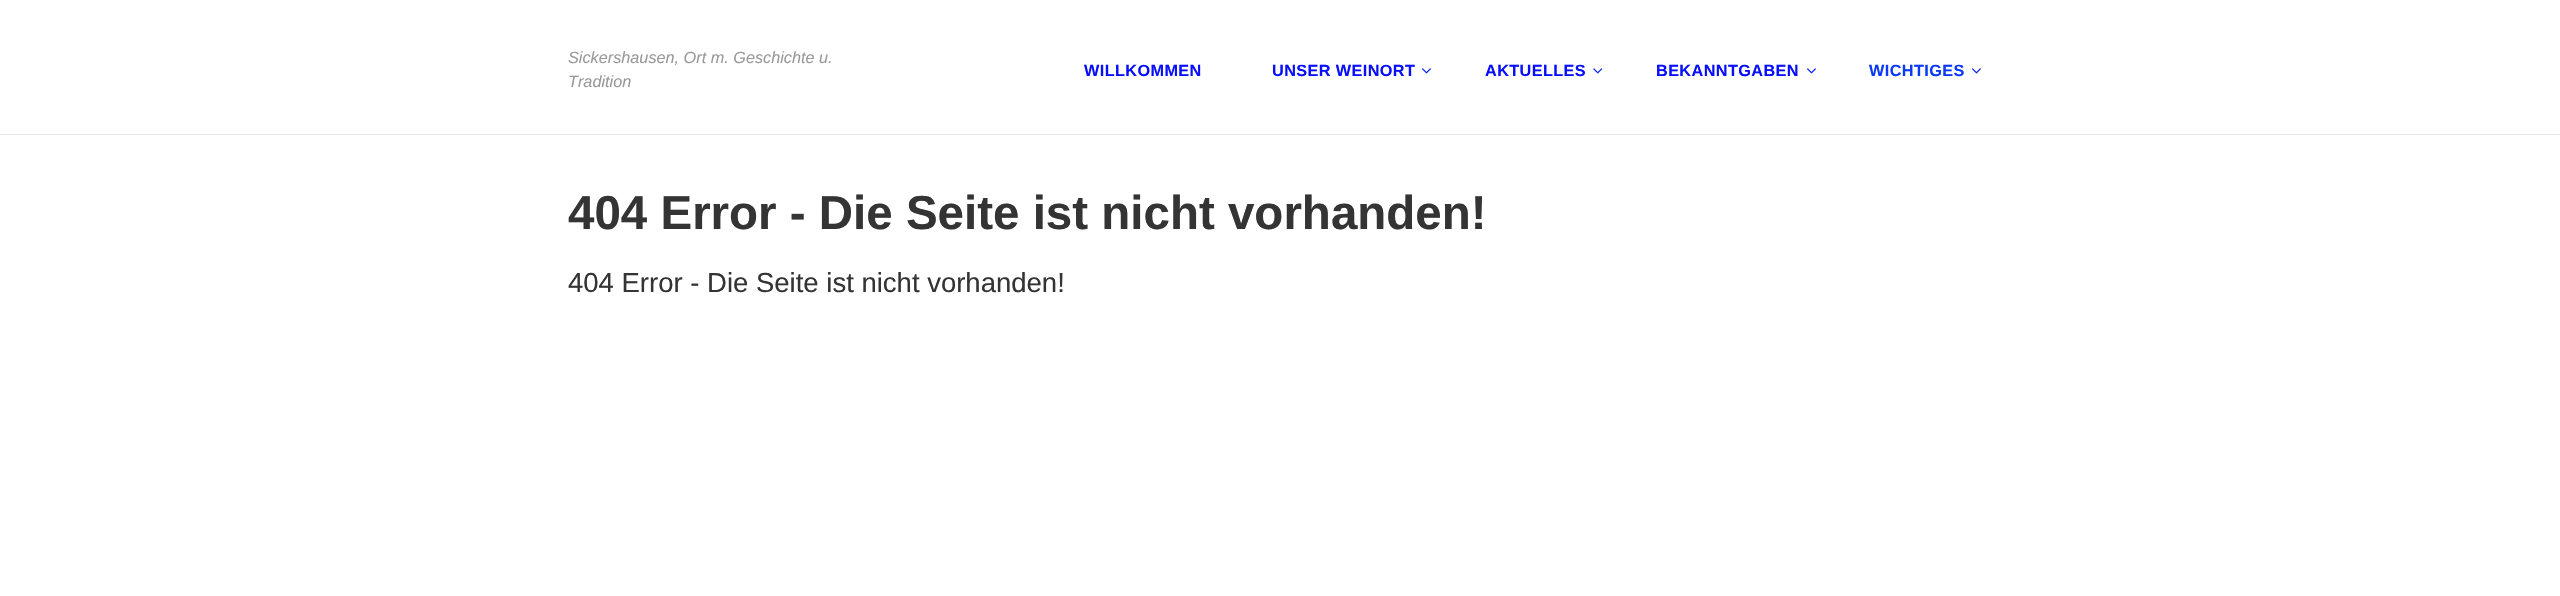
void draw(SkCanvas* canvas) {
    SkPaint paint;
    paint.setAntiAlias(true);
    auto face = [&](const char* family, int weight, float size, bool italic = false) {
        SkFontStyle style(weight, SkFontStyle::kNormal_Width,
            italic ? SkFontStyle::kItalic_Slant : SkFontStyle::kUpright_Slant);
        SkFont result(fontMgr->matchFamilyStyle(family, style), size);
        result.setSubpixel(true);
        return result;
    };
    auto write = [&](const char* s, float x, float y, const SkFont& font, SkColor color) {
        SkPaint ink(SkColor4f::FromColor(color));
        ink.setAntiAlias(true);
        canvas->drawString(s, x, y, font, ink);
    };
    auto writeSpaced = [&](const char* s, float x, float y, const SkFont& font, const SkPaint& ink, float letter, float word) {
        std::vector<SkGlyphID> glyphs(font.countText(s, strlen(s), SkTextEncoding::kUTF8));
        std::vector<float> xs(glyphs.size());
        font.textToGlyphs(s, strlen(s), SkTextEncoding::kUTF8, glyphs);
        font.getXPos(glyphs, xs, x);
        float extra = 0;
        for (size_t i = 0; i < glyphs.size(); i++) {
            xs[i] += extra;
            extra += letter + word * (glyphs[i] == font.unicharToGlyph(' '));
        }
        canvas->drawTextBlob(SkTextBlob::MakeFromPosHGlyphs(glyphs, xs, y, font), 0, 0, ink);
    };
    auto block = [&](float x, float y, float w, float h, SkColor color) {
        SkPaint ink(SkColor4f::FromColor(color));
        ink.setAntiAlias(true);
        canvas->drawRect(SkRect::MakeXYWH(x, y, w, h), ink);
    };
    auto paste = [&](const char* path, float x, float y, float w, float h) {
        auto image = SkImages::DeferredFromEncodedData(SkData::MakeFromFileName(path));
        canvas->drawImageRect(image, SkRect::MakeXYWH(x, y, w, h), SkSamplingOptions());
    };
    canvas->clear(SK_ColorWHITE);
    block(0, 134, 2560, 1, SkColorSetRGB(234, 234, 234));
    auto kFont1 = face("Liberation Sans", 400, 16.25f, true);
    write("Sickershausen, Ort m. Geschichte u.", 568, 63, kFont1, SkColorSetRGB(153, 153, 153));
    write("Tradition", 568, 87, kFont1, SkColorSetRGB(153, 153, 153));
    auto kFont2 = face("Liberation Sans", 700, 16.25f);
    paint.setColor(SkColorSetRGB(7, 15, 252));
    writeSpaced("WILLKOMMEN", 1084, 76, kFont2, paint, 0.4f, 0);
    writeSpaced("UNSER WEINORT", 1272, 76, kFont2, paint, 0.4f, 0);
    paste("pic1.png", 1422, 68, 9, 6);
    writeSpaced("AKTUELLES", 1485, 76, kFont2, paint, 0.4f, 0);
    paste("pic2.png", 1593, 68, 10, 6);
    writeSpaced("BEKANNTGABEN", 1656, 76, kFont2, paint, 0.4f, 0);
    paste("pic1.png", 1807, 68, 9, 6);
    paint.setColor(SkColorSetRGB(10, 57, 247));
    writeSpaced("WICHTIGES", 1869, 76, kFont2, paint, 0.4f, 0);
    paste("pic1.png", 1972, 68, 9, 6);
    auto kFont3 = face("Liberation Sans", 700, 47.5f);
    write("404 Error - Die Seite ist nicht vorhanden!", 568, 229, kFont3, SkColorSetRGB(52, 52, 52));
    auto kFont4 = face("Liberation Sans", 400, 27.5f);
    write("404 Error - Die Seite ist nicht vorhanden!", 568, 292, kFont4, SkColorSetRGB(52, 52, 52));
}
